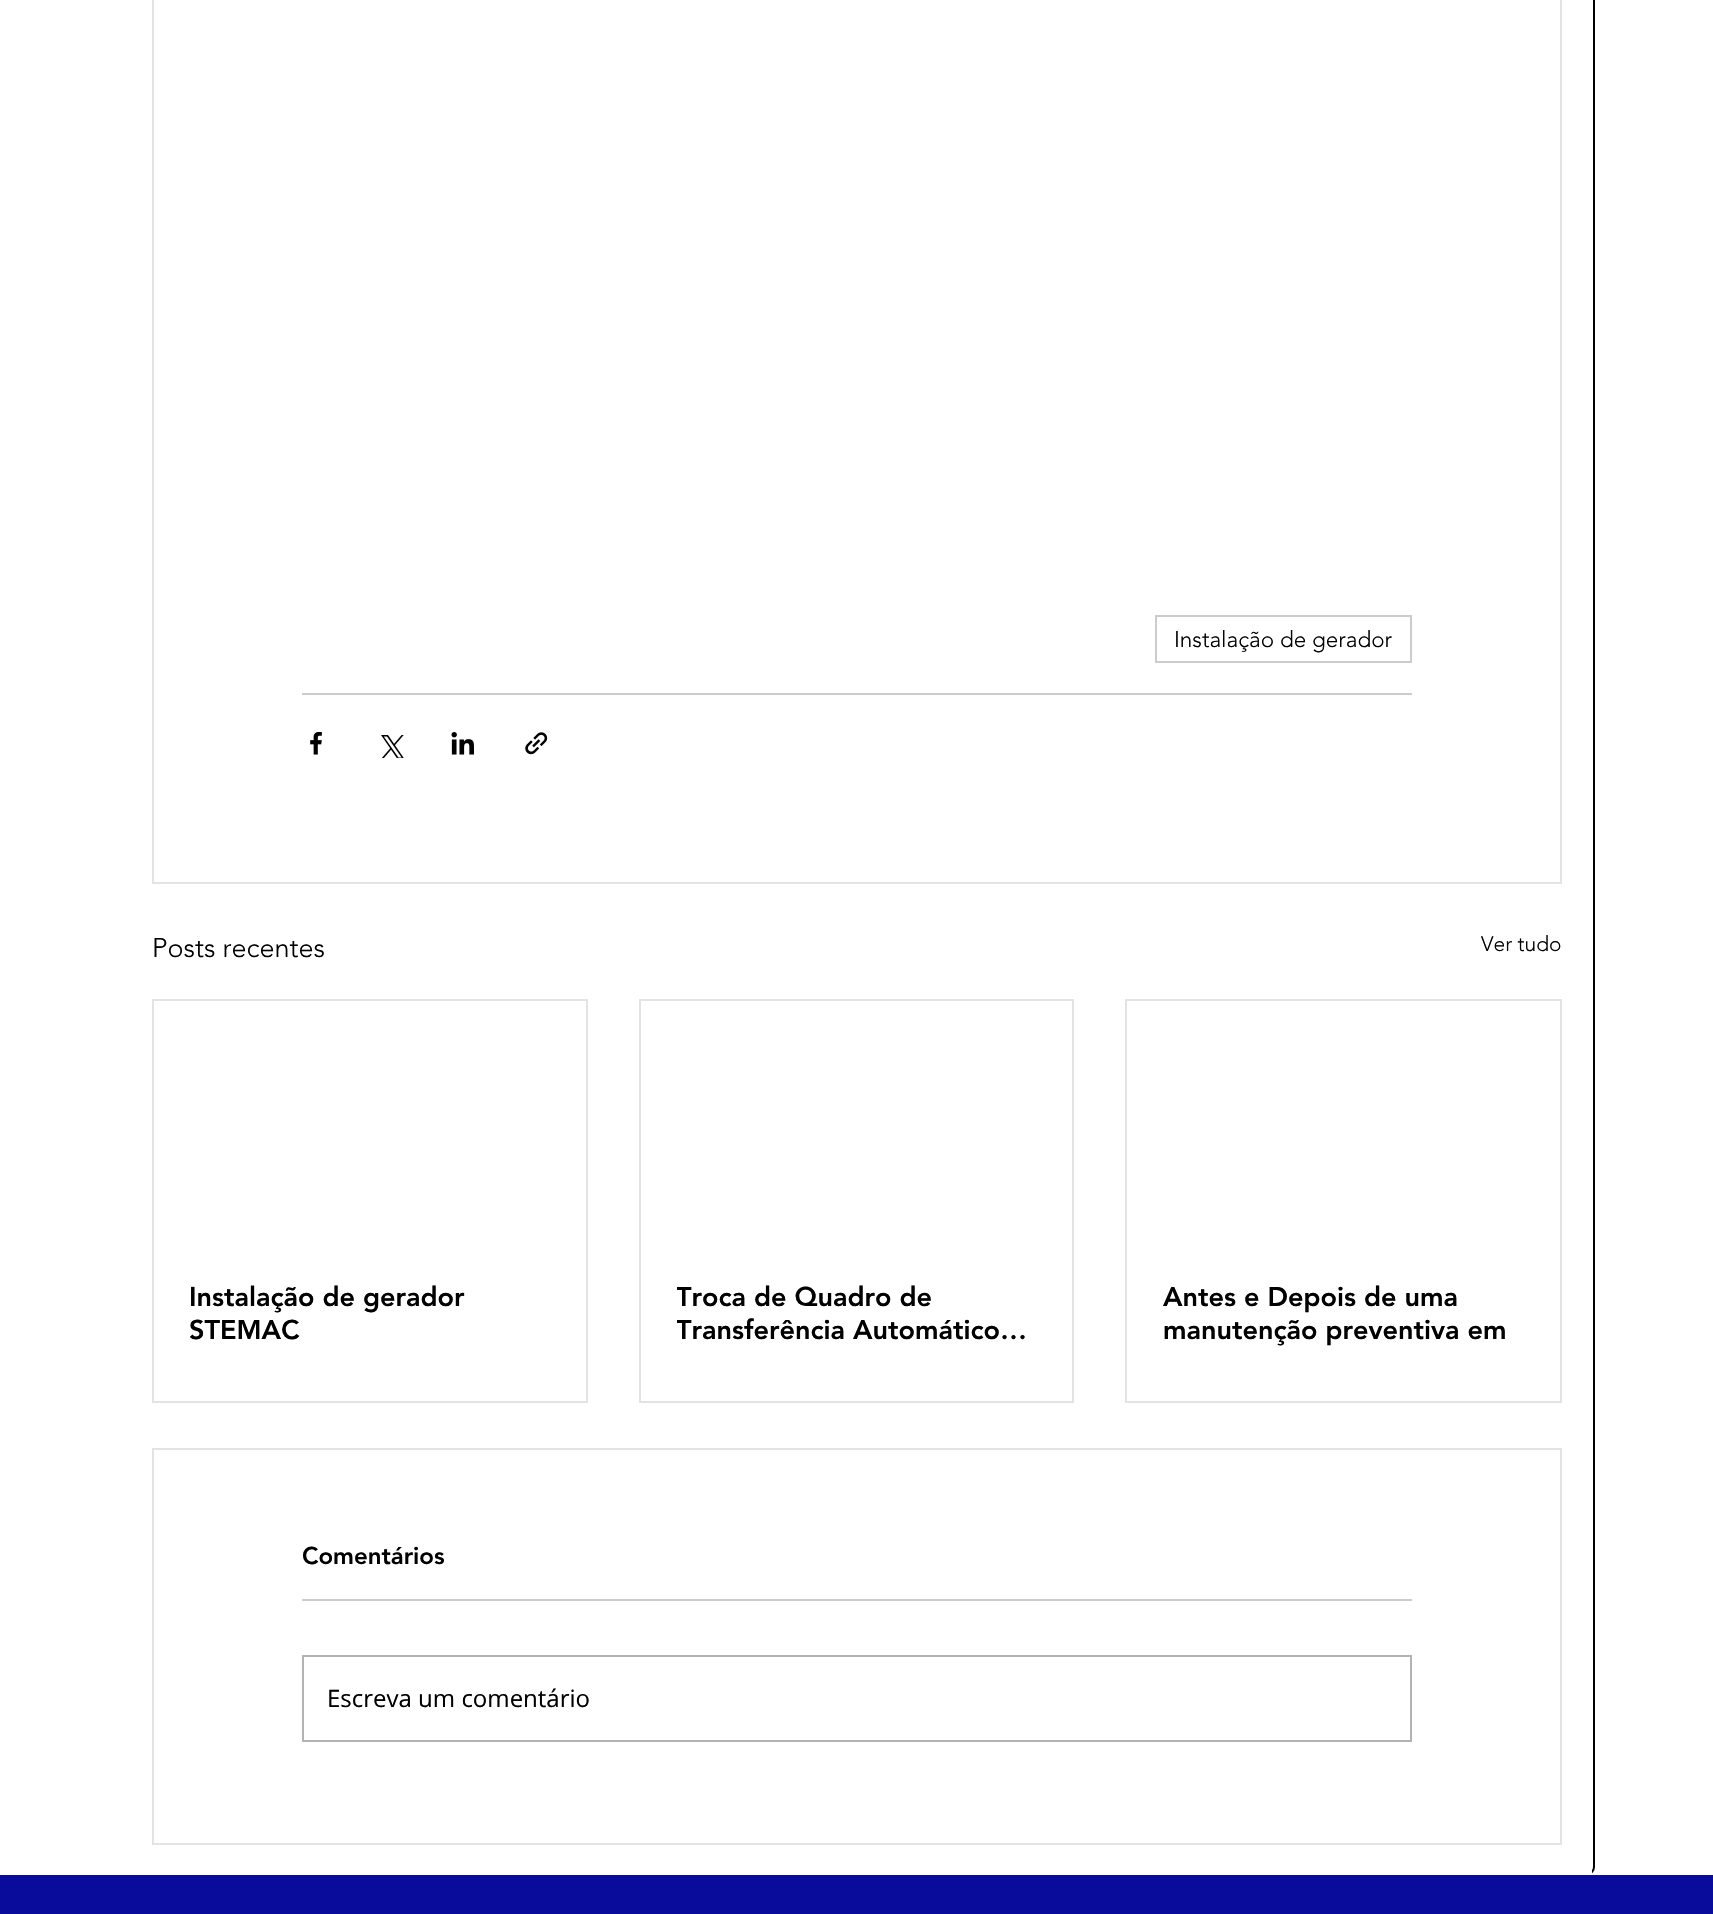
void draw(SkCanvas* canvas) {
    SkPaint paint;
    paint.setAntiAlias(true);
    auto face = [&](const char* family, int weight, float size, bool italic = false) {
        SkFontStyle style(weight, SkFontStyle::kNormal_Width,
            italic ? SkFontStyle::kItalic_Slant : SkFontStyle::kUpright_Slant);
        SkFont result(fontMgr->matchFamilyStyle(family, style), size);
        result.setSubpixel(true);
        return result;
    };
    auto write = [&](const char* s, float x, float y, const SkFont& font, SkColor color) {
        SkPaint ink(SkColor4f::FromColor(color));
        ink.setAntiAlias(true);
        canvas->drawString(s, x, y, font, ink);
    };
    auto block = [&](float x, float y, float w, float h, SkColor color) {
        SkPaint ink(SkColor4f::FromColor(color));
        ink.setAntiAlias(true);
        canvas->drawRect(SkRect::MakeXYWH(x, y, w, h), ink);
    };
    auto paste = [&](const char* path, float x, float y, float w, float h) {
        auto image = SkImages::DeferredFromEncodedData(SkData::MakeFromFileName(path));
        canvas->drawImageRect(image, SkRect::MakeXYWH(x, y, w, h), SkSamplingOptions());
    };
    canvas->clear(SK_ColorWHITE);
    paint.setStyle(SkPaint::kStroke_Style);
    paint.setStrokeWidth(2);
    paint.setColor(SK_ColorBLACK);
    canvas->drawRoundRect(SkRect::MakeXYWH(123, -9, 1471, 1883), 7, 7, paint);
    block(122, 0, 1470, 1875, SK_ColorWHITE);
    paint.setColor(SkColorSetRGB(227, 227, 227));
    canvas->drawRect(SkRect::MakeXYWH(153, -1, 1408, 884), paint);
    paint.setColor(SkColorSetRGB(204, 204, 204));
    canvas->drawRect(SkRect::MakeXYWH(1156, 616, 255, 46), paint);
    auto kFont1 = face("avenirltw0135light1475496", 300, 22.5f);
    write("Instalação de gerador", 1174, 647, kFont1, SK_ColorBLACK);
    block(302, 693, 1110, 2, SkColorSetRGB(204, 204, 204));
    paste("pic1.png", 310, 732, 12, 23);
    paste("pic2.png", 381, 735, 23, 23);
    paste("pic3.png", 451, 732, 23, 23);
    paste("pic4.png", 525, 732, 23, 23);
    auto kFont2 = face("avenirltw0135light1475496", 300, 27);
    write("Posts recentes", 152, 957, kFont2, SK_ColorBLACK);
    auto kFont3 = face("avenirltw0135light1475496", 300, 21);
    write("Ver tudo", 1481, 951, kFont3, SK_ColorBLACK);
    paint.setColor(SkColorSetRGB(227, 227, 227));
    canvas->drawRect(SkRect::MakeXYWH(153, 1000, 434, 402), paint);
    auto kFont4 = face("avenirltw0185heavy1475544", 900, 27);
    write("Instalação de gerador", 189, 1306, kFont4, SK_ColorBLACK);
    write("STEMAC", 189, 1339, kFont4, SK_ColorBLACK);
    canvas->drawRect(SkRect::MakeXYWH(640, 1000, 433, 402), paint);
    canvas->save();
    canvas->clipRect(SkRect::MakeXYWH(677, 1281, 360, 66));
    write("Troca de Quadro de", 676, 1306, kFont4, SK_ColorBLACK);
    write("Transferência Automático…", 676, 1339, kFont4, SK_ColorBLACK);
    canvas->restore();
    canvas->drawRect(SkRect::MakeXYWH(1126, 1000, 435, 402), paint);
    write("Antes e Depois de uma", 1163, 1306, kFont4, SK_ColorBLACK);
    write("manutenção preventiva em", 1163, 1339, kFont4, SK_ColorBLACK);
    canvas->drawRect(SkRect::MakeXYWH(153, 1449, 1408, 395), paint);
    auto kFont5 = face("avenirltw0185heavy1475544", 900, 24);
    write("Comentários", 302, 1564, kFont5, SK_ColorBLACK);
    block(302, 1599, 1110, 2, SkColorSetRGB(204, 204, 204));
    paint.setColor(SkColorSetRGB(179, 179, 179));
    canvas->drawRect(SkRect::MakeXYWH(303, 1656, 1108, 85), paint);
    auto kFont6 = face("Open Sans", 400, 24);
    write("Escreva um comentário", 327, 1707, kFont6, SK_ColorBLACK);
    block(0, 1875, 1713, 39, SkColorSetRGB(9, 12, 155));
}
